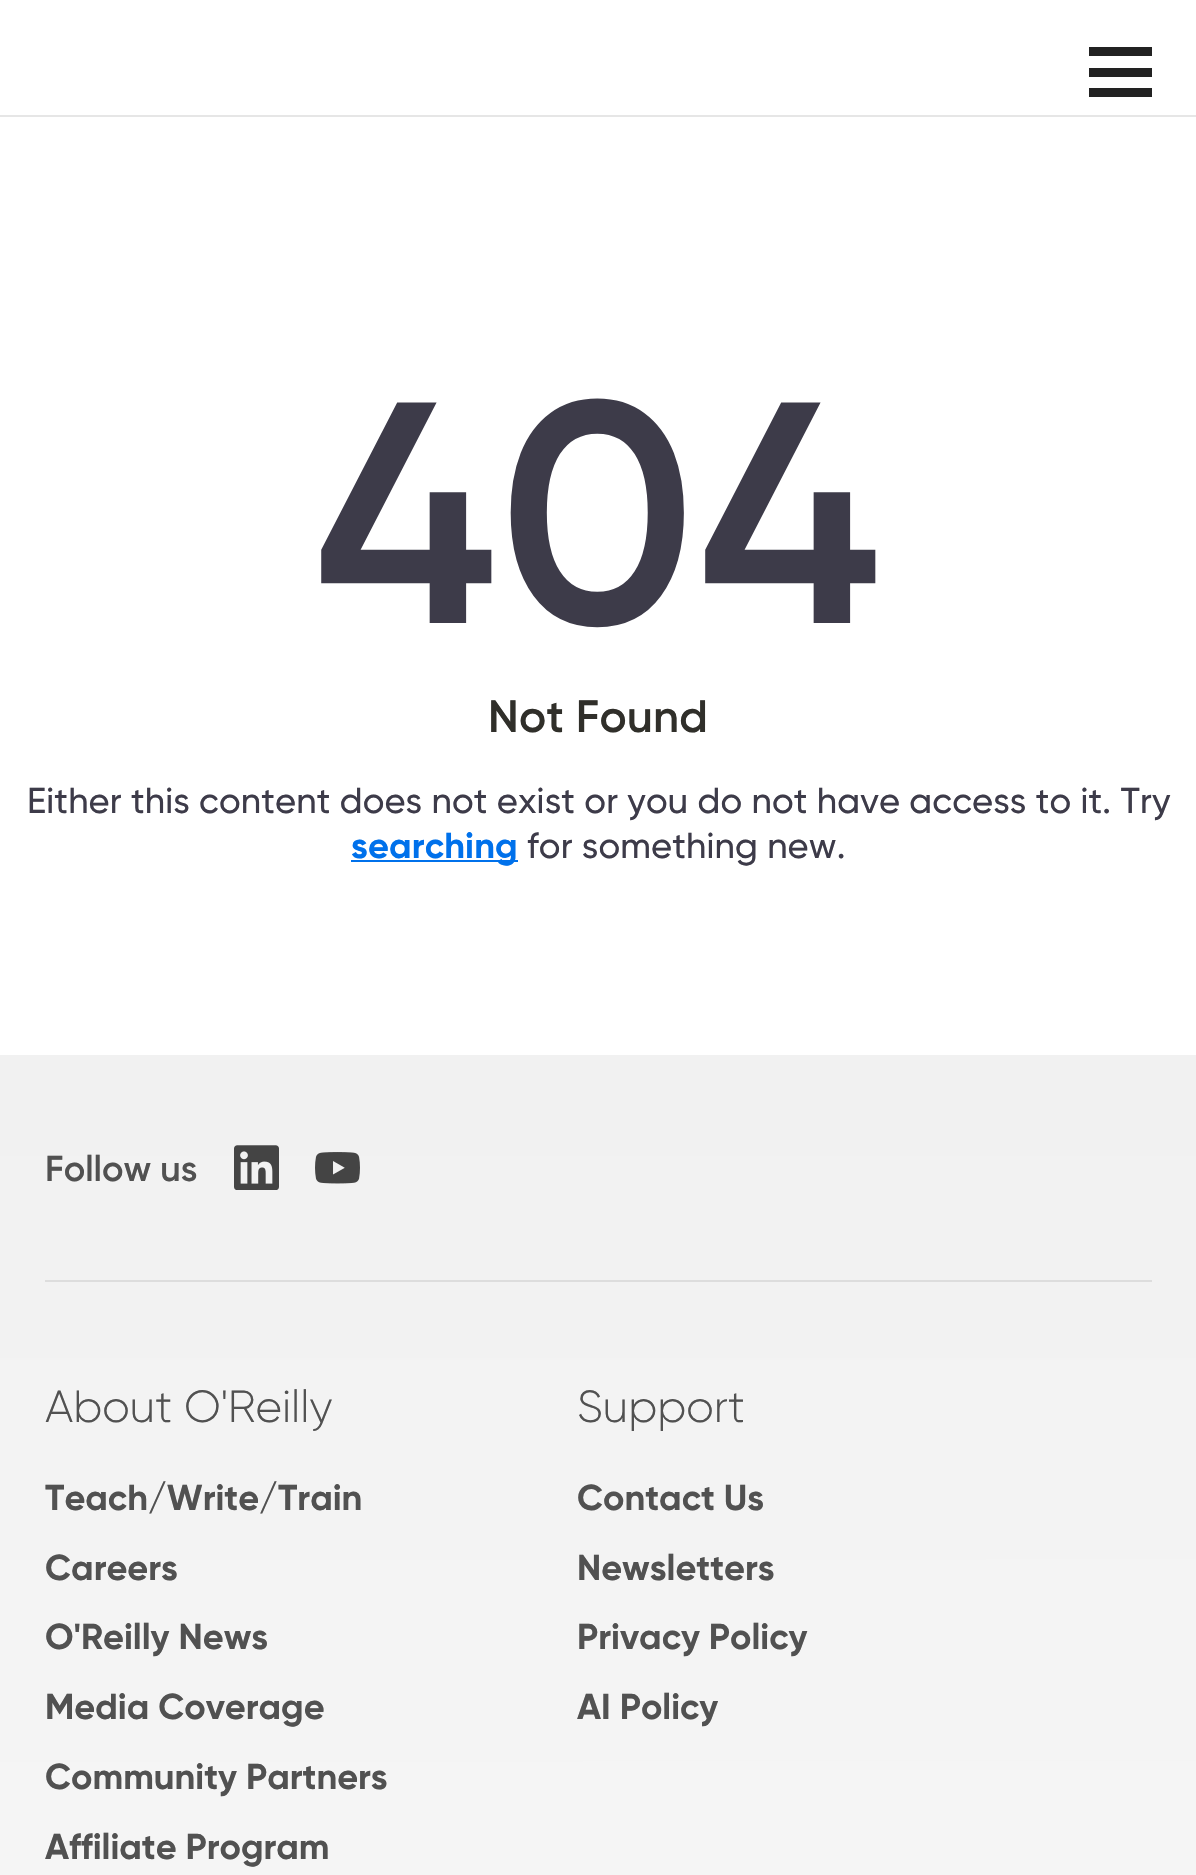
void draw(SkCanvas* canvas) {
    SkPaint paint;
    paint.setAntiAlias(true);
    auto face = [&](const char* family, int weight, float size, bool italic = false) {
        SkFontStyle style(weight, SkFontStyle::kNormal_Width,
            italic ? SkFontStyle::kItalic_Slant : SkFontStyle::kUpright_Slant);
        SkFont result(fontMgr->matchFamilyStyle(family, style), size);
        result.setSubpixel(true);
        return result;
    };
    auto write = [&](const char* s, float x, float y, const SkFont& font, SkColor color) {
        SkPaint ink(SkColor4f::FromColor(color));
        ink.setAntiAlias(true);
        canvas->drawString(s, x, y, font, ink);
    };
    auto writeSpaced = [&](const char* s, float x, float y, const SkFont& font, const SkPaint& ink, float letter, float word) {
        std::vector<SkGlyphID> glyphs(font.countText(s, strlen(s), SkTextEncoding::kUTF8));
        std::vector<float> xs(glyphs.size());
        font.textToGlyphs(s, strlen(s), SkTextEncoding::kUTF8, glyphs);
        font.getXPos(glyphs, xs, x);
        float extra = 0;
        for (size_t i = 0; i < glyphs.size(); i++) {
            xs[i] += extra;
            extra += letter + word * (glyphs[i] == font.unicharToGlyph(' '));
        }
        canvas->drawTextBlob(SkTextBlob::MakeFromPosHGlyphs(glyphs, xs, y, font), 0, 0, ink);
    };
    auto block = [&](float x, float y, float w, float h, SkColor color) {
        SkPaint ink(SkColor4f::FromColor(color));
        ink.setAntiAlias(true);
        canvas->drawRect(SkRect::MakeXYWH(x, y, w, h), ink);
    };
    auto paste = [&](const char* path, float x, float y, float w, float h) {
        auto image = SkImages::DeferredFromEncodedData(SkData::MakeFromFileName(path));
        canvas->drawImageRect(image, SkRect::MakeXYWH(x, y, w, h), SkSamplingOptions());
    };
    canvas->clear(SK_ColorWHITE);
    block(0, 115, 1196, 2, SkColorSetRGB(230, 230, 230));
    block(1089, 68, 63, 9, SkColorSetRGB(34, 34, 34));
    block(1089, 47, 63, 9, SkColorSetRGB(34, 34, 34));
    block(1089, 88, 63, 9, SkColorSetRGB(34, 34, 34));
    auto kFont1 = face("Gilroy", 600, 315);
    paint.setColor(SkColorSetRGB(61, 59, 73));
    writeSpaced("404", 314, 623, kFont1, paint, 1.5f, 0);
    auto kFont2 = face("Gilroy", 600, 45.5f);
    paint.setColor(SkColorSetRGB(48, 47, 42));
    writeSpaced("Not Found", 488, 732, kFont2, paint, 0.25f, 0);
    auto kFont3 = face("Gilroy", 500, 36);
    paint.setColor(SkColorSetRGB(61, 59, 73));
    writeSpaced("Either this content does not exist or you do not have access to it. Try", 27, 813, kFont3, paint, 0.18f, 0);
    block(351, 860, 167, 2, SkColorSetRGB(0, 113, 235));
    auto kFont4 = face("Gilroy", 700, 36);
    paint.setColor(SkColorSetRGB(0, 113, 235));
    writeSpaced("searching", 351, 858, kFont4, paint, 0.18f, 0);
    paint.setColor(SkColorSetRGB(61, 59, 73));
    writeSpaced("for something new.", 527, 858, kFont3, paint, 0.18f, 0);
    {
        const SkColor colors[] = {SkColorSetRGB(241, 241, 241), SK_ColorWHITE};
        const float stops[] = {0, 1};
        const SkPoint ends[] = {{598, 1055}, {599, 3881}};
        paint.setShader(SkGradientShader::MakeLinear(ends, colors, stops, 2, SkTileMode::kClamp));
        paint.setAlpha(255);
    }
    canvas->drawRect(SkRect::MakeXYWH(0, 1055, 1196, 820), paint);
    block(45, 1280, 1107, 2, SkColorSetRGB(221, 221, 221));
    auto kFont5 = face("Gilroy", 600, 36);
    write("Follow us", 45, 1181, kFont5, SkColorSetRGB(81, 81, 81));
    paste("pic1.png", 234, 1145, 45, 45);
    paste("pic2.png", 315, 1152, 45, 32);
    auto kFont6 = face("Gilroy", 300, 45);
    write("About O'Reilly", 45, 1422, kFont6, SkColorSetRGB(81, 81, 81));
    write("Teach/Write/Train", 45, 1510, kFont4, SkColorSetRGB(81, 81, 81));
    write("Careers", 45, 1580, kFont4, SkColorSetRGB(81, 81, 81));
    write("O'Reilly News", 45, 1649, kFont4, SkColorSetRGB(81, 81, 81));
    write("Media Coverage", 45, 1719, kFont4, SkColorSetRGB(81, 81, 81));
    write("Community Partners", 45, 1789, kFont4, SkColorSetRGB(81, 81, 81));
    write("Affiliate Program", 45, 1859, kFont4, SkColorSetRGB(81, 81, 81));
    write("Support", 577, 1422, kFont6, SkColorSetRGB(81, 81, 81));
    write("Contact Us", 577, 1510, kFont4, SkColorSetRGB(81, 81, 81));
    write("Newsletters", 577, 1580, kFont4, SkColorSetRGB(81, 81, 81));
    write("Privacy Policy", 577, 1649, kFont4, SkColorSetRGB(81, 81, 81));
    write("AI Policy", 577, 1719, kFont4, SkColorSetRGB(81, 81, 81));
}
